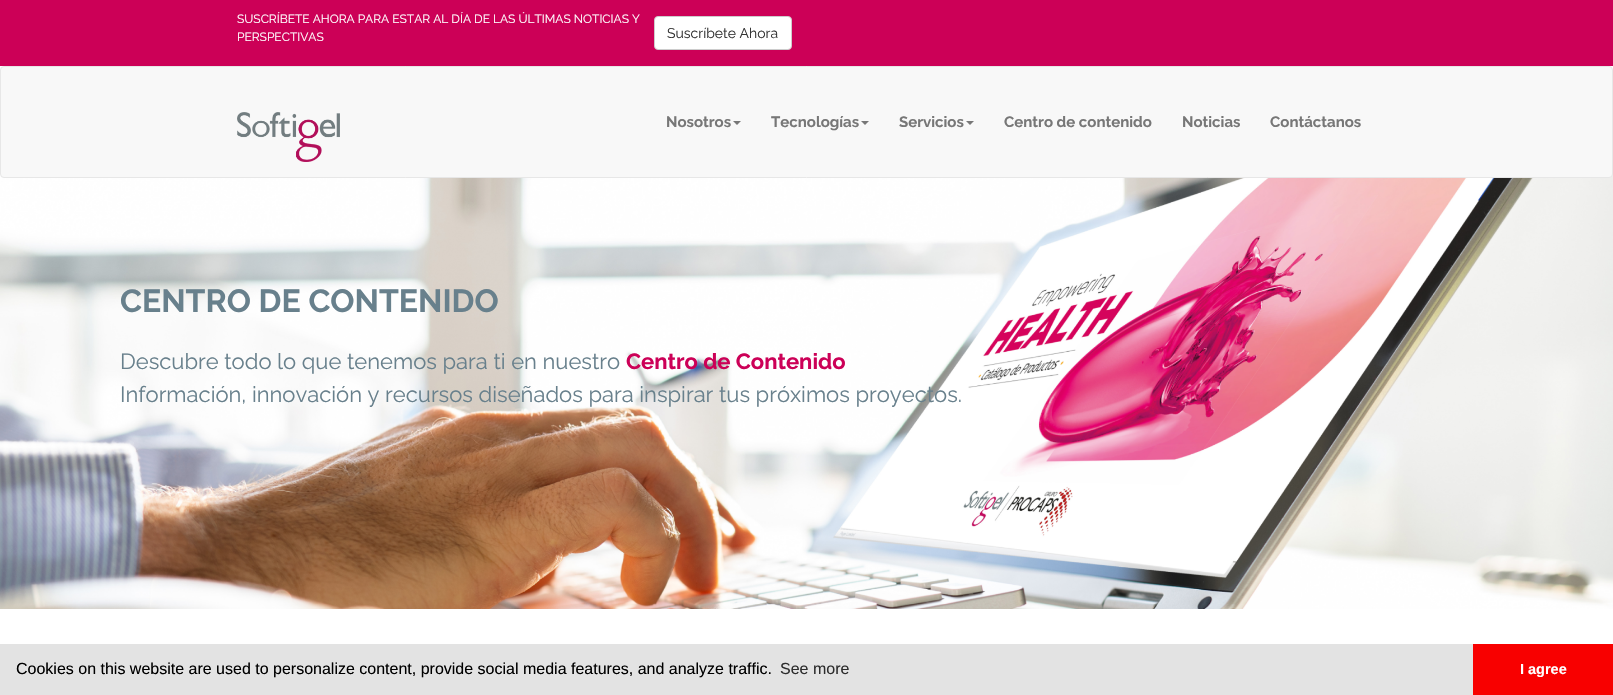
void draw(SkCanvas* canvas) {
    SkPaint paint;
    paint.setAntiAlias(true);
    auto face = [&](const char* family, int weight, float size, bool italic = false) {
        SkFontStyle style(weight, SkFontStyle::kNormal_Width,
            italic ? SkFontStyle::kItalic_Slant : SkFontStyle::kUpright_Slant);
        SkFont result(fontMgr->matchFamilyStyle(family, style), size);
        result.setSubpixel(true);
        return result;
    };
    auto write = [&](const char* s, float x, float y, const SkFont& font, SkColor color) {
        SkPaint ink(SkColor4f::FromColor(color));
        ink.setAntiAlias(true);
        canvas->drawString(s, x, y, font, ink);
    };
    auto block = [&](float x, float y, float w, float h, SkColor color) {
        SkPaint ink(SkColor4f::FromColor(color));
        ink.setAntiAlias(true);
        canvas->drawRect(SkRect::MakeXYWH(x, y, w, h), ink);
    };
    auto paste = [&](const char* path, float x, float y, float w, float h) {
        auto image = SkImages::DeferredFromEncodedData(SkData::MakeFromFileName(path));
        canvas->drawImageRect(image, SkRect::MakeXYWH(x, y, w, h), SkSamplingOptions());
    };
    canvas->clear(SK_ColorWHITE);
    block(0, 0, 1613, 66, SkColorSetRGB(204, 0, 87));
    auto kFont1 = face("Raleway", 400, 12);
    write("SUSCRÍBETE AHORA PARA ESTAR AL DÍA DE LAS ÚLTIMAS NOTICIAS Y", 237, 23, kFont1, SK_ColorWHITE);
    write("PERSPECTIVAS", 237, 41, kFont1, SK_ColorWHITE);
    paint.setColor(SK_ColorWHITE);
    canvas->drawRoundRect(SkRect::MakeXYWH(654.5f, 16.5f, 137, 33), 3.5f, 3.5f, paint);
    paint.setStyle(SkPaint::kStroke_Style);
    paint.setStrokeWidth(1);
    paint.setColor(SkColorSetRGB(204, 204, 204));
    canvas->drawRoundRect(SkRect::MakeXYWH(654.5f, 16.5f, 137, 33), 3.5f, 3.5f, paint);
    auto kFont2 = face("Raleway", 400, 14);
    write("Suscríbete Ahora", 667, 38, kFont2, SkColorSetRGB(51, 51, 51));
    paste("pic2.png", 0, 174, 1613, 435);
    paint.setStyle(SkPaint::kFill_Style);
    paint.setColor(SkColorSetRGB(248, 248, 248));
    canvas->drawRoundRect(SkRect::MakeXYWH(0.5f, 66.5f, 1612, 111), 3.5f, 3.5f, paint);
    paint.setStyle(SkPaint::kStroke_Style);
    paint.setColor(SkColorSetRGB(231, 231, 231));
    canvas->drawRoundRect(SkRect::MakeXYWH(0.5f, 66.5f, 1612, 111), 3.5f, 3.5f, paint);
    paste("pic1.png", 237, 112, 103, 50);
    auto kFont3 = face("Raleway", 700, 15);
    write("Nosotros", 666, 127, kFont3, SkColorSetRGB(119, 119, 119));
    paint.setStyle(SkPaint::kFill_Style);
    paint.setColor(SkColorSetRGB(119, 119, 119));
    canvas->drawPath(SkPathBuilder().moveTo(733, 121).lineTo(741, 121).lineTo(737, 125).close().detach(), paint);
    write("Tecnologías", 771, 127, kFont3, SkColorSetRGB(119, 119, 119));
    canvas->drawPath(SkPathBuilder().moveTo(861, 121).lineTo(869, 121).lineTo(865, 125).close().detach(), paint);
    write("Servicios", 899, 127, kFont3, SkColorSetRGB(119, 119, 119));
    canvas->drawPath(SkPathBuilder().moveTo(966, 121).lineTo(974, 121).lineTo(970, 125).close().detach(), paint);
    write("Centro de contenido", 1004, 127, kFont3, SkColorSetRGB(119, 119, 119));
    write("Noticias", 1182, 127, kFont3, SkColorSetRGB(119, 119, 119));
    write("Contáctanos", 1270, 127, kFont3, SkColorSetRGB(119, 119, 119));
    auto kFont4 = face("Raleway", 700, 32);
    write("CENTRO DE CONTENIDO", 120, 312, kFont4, SkColorSetRGB(104, 128, 140));
    auto kFont5 = face("Raleway", 400, 22);
    write("Descubre todo lo que tenemos para ti en nuestro", 120, 369, kFont5, SkColorSetRGB(104, 128, 140));
    auto kFont6 = face("Raleway", 700, 22);
    write("Centro de Contenido", 626, 369, kFont6, SkColorSetRGB(204, 0, 87));
    write("Información, innovación y recursos diseñados para inspirar tus próximos proyectos.", 120, 402, kFont5, SkColorSetRGB(104, 128, 140));
    block(0, 644, 1473, 51, SkColorSetRGB(227, 227, 227));
    auto kFont7 = face("Liberation Sans", 400, 16);
    write("Cookies on this website are used to personalize content, provide social media features, and analyze traffic.", 16, 674, kFont7, SK_ColorBLACK);
    write("See more", 780, 674, kFont7, SkColorSetRGB(45, 45, 45));
    block(1473, 644, 140, 51, SkColorSetRGB(248, 0, 0));
    auto kFont8 = face("Liberation Sans", 700, 14.5f);
    write("I agree", 1520, 674, kFont8, SK_ColorWHITE);
}
